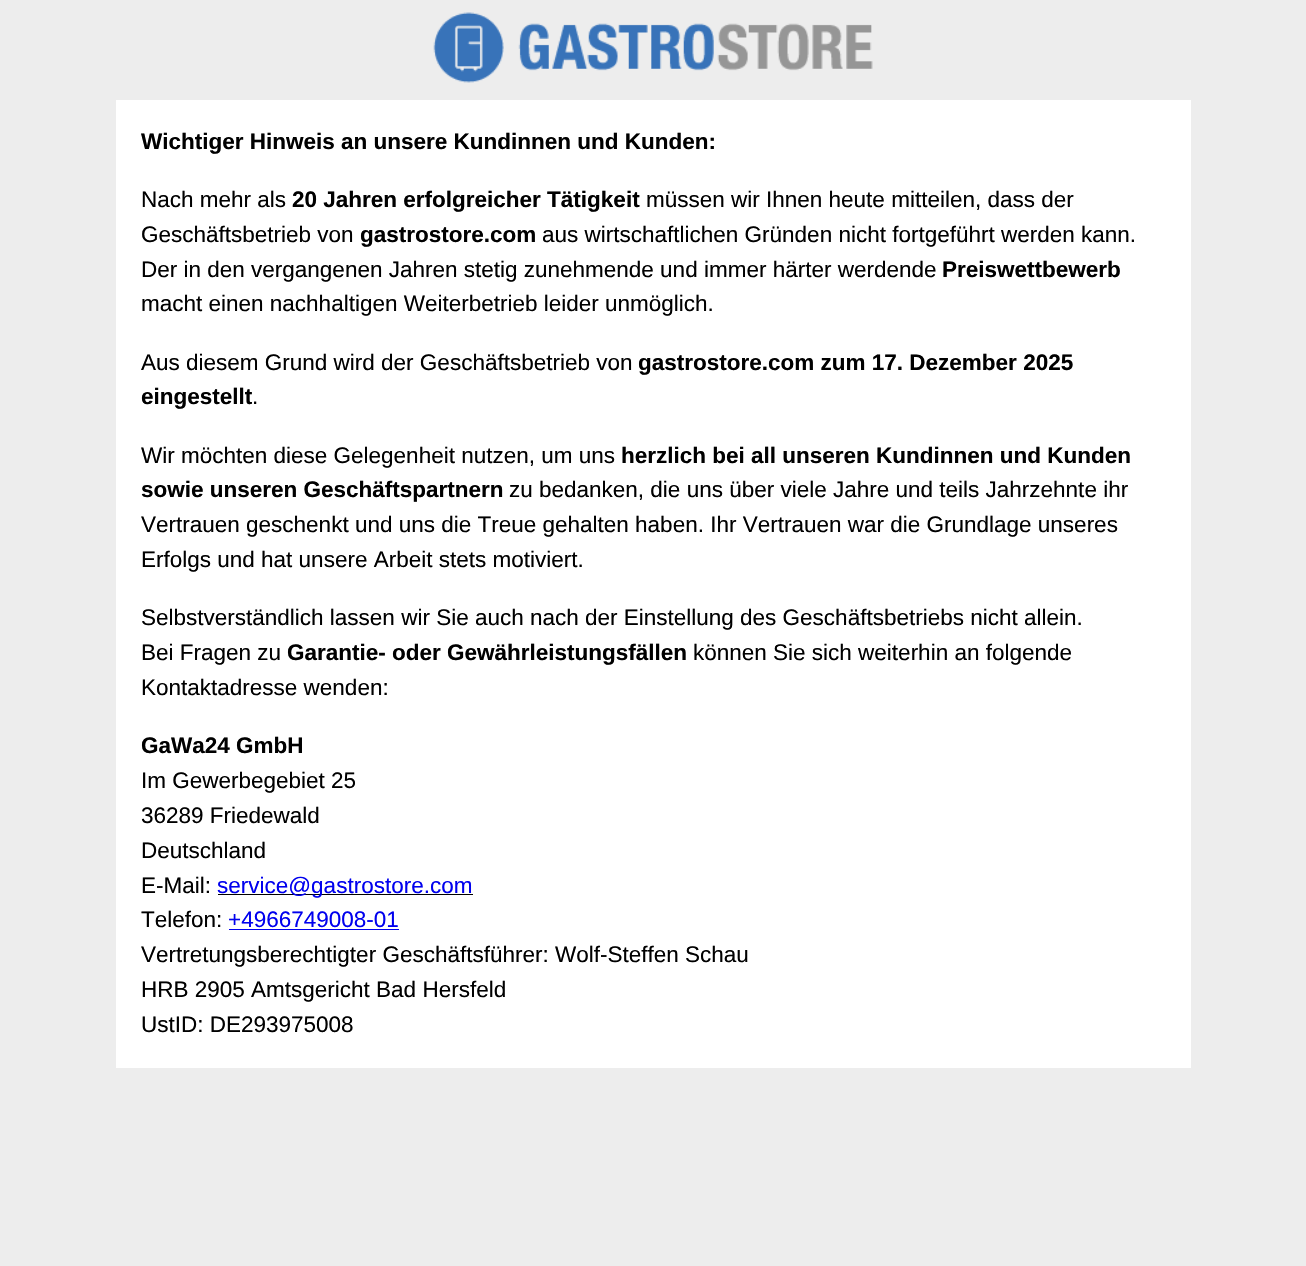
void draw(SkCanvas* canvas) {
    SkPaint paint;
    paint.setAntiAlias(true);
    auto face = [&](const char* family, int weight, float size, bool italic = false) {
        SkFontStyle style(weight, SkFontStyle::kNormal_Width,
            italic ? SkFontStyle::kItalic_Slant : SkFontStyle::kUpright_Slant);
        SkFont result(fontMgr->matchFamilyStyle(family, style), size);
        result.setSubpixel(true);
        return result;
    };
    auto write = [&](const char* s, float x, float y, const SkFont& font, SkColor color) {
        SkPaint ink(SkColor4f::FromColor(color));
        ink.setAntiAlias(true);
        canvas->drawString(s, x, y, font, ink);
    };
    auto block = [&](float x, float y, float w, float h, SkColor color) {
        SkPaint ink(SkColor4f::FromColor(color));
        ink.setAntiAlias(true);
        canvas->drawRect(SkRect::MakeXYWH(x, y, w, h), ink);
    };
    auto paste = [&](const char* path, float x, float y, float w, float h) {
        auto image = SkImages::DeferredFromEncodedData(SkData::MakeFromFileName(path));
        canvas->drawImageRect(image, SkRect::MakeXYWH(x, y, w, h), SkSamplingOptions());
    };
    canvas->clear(SkColorSetRGB(237, 237, 237));
    paste("pic1.png", 433, 12, 440, 71);
    block(116, 100, 1075, 968, SK_ColorWHITE);
    auto kFont1 = face("Liberation Sans", 700, 22.5f);
    write("Wichtiger Hinweis an unsere Kundinnen und Kunden:", 141, 149, kFont1, SK_ColorBLACK);
    auto kFont2 = face("Liberation Sans", 400, 22.5f);
    write("Nach mehr als", 141, 207, kFont2, SK_ColorBLACK);
    write("20 Jahren erfolgreicher Tätigkeit", 292, 207, kFont1, SK_ColorBLACK);
    write("müssen wir Ihnen heute mitteilen, dass der", 646, 207, kFont2, SK_ColorBLACK);
    write("Geschäftsbetrieb von", 141, 242, kFont2, SK_ColorBLACK);
    write("gastrostore.com", 360, 242, kFont1, SK_ColorBLACK);
    write("aus wirtschaftlichen Gründen nicht fortgeführt werden kann.", 542, 242, kFont2, SK_ColorBLACK);
    write("Der in den vergangenen Jahren stetig zunehmende und immer härter werdende", 141, 277, kFont2, SK_ColorBLACK);
    write("Preiswettbewerb", 942, 277, kFont1, SK_ColorBLACK);
    write("macht einen nachhaltigen Weiterbetrieb leider unmöglich.", 141, 311, kFont2, SK_ColorBLACK);
    write("Aus diesem Grund wird der Geschäftsbetrieb von", 141, 370, kFont2, SK_ColorBLACK);
    write("gastrostore.com zum 17. Dezember 2025", 638, 370, kFont1, SK_ColorBLACK);
    write("eingestellt", 141, 404, kFont1, SK_ColorBLACK);
    write(".", 252, 404, kFont2, SK_ColorBLACK);
    write("Wir möchten diese Gelegenheit nutzen, um uns", 141, 463, kFont2, SK_ColorBLACK);
    write("herzlich bei all unseren Kundinnen und Kunden", 621, 463, kFont1, SK_ColorBLACK);
    write("sowie unseren Geschäftspartnern", 141, 497, kFont1, SK_ColorBLACK);
    write("zu bedanken, die uns über viele Jahre und teils Jahrzehnte ihr", 509, 497, kFont2, SK_ColorBLACK);
    write("Vertrauen geschenkt und uns die Treue gehalten haben. Ihr Vertrauen war die Grundlage unseres", 141, 532, kFont2, SK_ColorBLACK);
    write("Erfolgs und hat unsere Arbeit stets motiviert.", 141, 567, kFont2, SK_ColorBLACK);
    write("Selbstverständlich lassen wir Sie auch nach der Einstellung des Geschäftsbetriebs nicht allein.", 141, 625, kFont2, SK_ColorBLACK);
    write("Bei Fragen zu", 141, 660, kFont2, SK_ColorBLACK);
    write("Garantie- oder Gewährleistungsfällen", 287, 660, kFont1, SK_ColorBLACK);
    write("können Sie sich weiterhin an folgende", 693, 660, kFont2, SK_ColorBLACK);
    write("Kontaktadresse wenden:", 141, 695, kFont2, SK_ColorBLACK);
    write("GaWa24 GmbH", 141, 753, kFont1, SK_ColorBLACK);
    write("Im Gewerbegebiet 25", 141, 788, kFont2, SK_ColorBLACK);
    write("36289 Friedewald", 141, 823, kFont2, SK_ColorBLACK);
    write("Deutschland", 141, 858, kFont2, SK_ColorBLACK);
    write("E-Mail:", 141, 893, kFont2, SK_ColorBLACK);
    block(218, 894, 255, 1, SK_ColorBLACK);
    write("service@gastrostore.com", 217, 893, kFont2, SkColorSetRGB(0, 0, 238));
    write("Telefon:", 141, 927, kFont2, SK_ColorBLACK);
    write("+4966749008-01", 228, 927, kFont2, SkColorSetRGB(0, 0, 238));
    block(229, 929, 170, 1, SkColorSetRGB(0, 0, 238));
    write("Vertretungsberechtigter Geschäftsführer: Wolf-Steffen Schau", 141, 962, kFont2, SK_ColorBLACK);
    write("HRB 2905 Amtsgericht Bad Hersfeld", 141, 997, kFont2, SK_ColorBLACK);
    write("UstID: DE293975008", 141, 1032, kFont2, SK_ColorBLACK);
}
